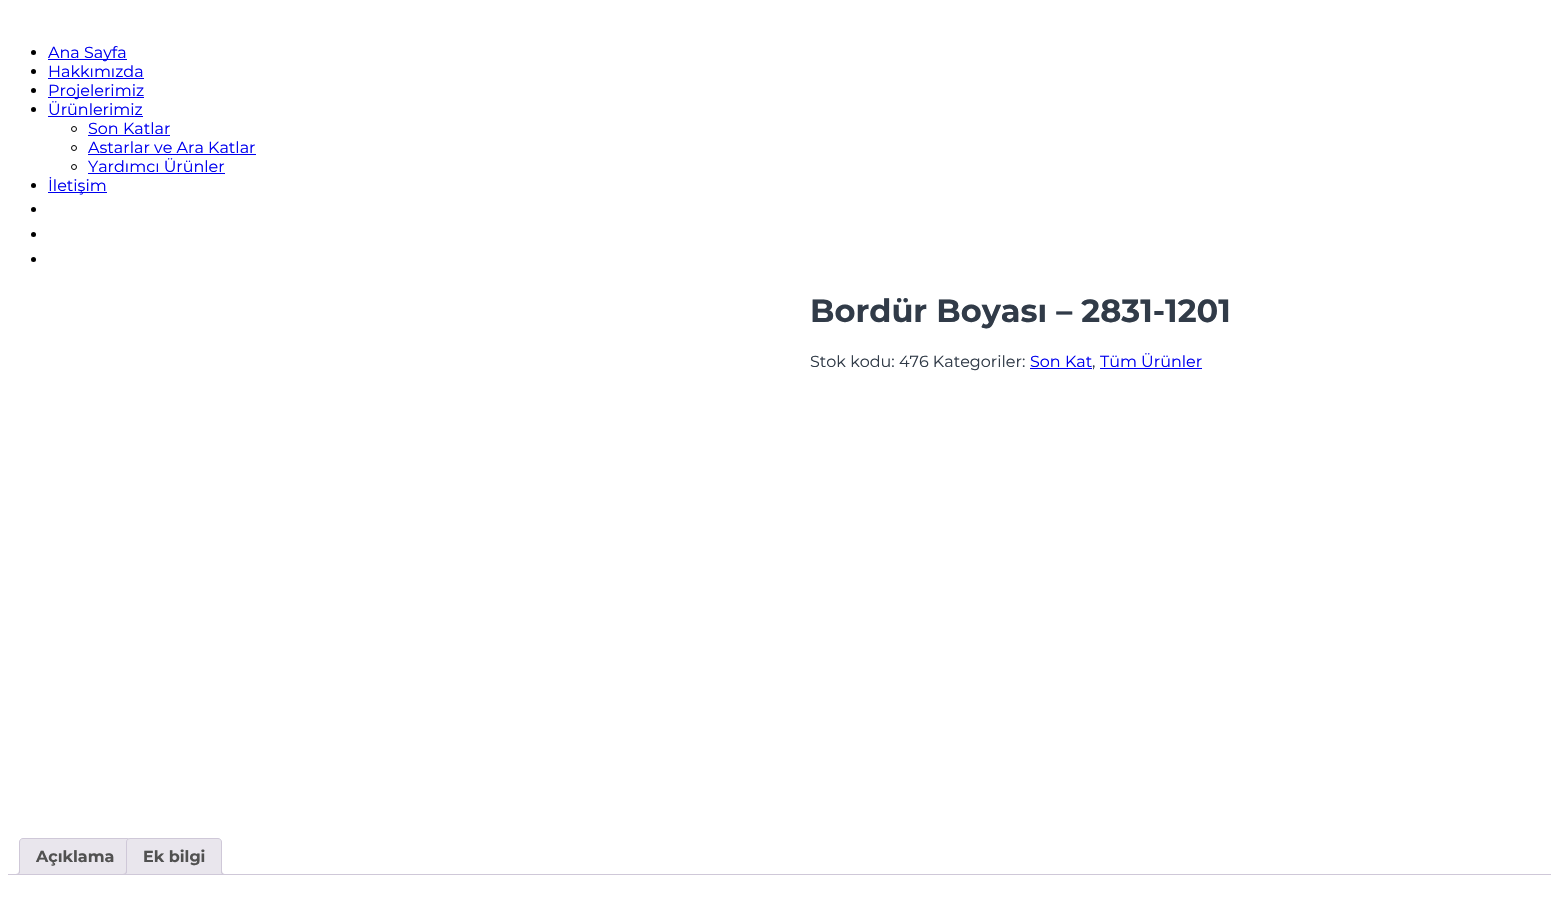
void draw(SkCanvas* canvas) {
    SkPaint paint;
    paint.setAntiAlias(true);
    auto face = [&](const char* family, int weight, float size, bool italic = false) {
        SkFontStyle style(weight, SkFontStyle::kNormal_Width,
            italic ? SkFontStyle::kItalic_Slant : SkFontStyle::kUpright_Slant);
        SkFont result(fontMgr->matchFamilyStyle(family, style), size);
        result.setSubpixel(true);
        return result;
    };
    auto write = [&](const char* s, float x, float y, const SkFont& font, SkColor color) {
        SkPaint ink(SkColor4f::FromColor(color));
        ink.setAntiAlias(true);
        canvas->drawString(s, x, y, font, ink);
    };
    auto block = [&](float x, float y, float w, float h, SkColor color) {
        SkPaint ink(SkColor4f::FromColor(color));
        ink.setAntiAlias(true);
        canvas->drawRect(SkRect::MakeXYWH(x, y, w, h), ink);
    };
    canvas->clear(SK_ColorWHITE);
    paint.setColor(SK_ColorBLACK);
    canvas->drawCircle(33.5f, 52.5f, 2.5f, paint);
    block(48, 59, 79, 1, SkColorSetRGB(0, 0, 238));
    auto kFont1 = face("Montserrat", 400, 16);
    write("Ana Sayfa", 48, 58, kFont1, SkColorSetRGB(0, 0, 238));
    canvas->drawCircle(33.5f, 71.5f, 2.5f, paint);
    write("Hakkımızda", 48, 77, kFont1, SkColorSetRGB(0, 0, 238));
    block(48, 78, 96, 1, SkColorSetRGB(0, 0, 238));
    canvas->drawCircle(33.5f, 90.5f, 2.5f, paint);
    block(48, 97, 96, 1, SkColorSetRGB(0, 0, 238));
    write("Projelerimiz", 48, 96, kFont1, SkColorSetRGB(0, 0, 238));
    canvas->drawCircle(33.5f, 109.5f, 2.5f, paint);
    write("Ürünlerimiz", 48, 115, kFont1, SkColorSetRGB(0, 0, 238));
    block(48, 116, 95, 1, SkColorSetRGB(0, 0, 238));
    paint.setStyle(SkPaint::kStroke_Style);
    paint.setStrokeWidth(1);
    canvas->drawCircle(74, 129, 2.5f, paint);
    write("Son Katlar", 88, 134, kFont1, SkColorSetRGB(0, 0, 238));
    block(88, 135, 82, 1, SkColorSetRGB(0, 0, 238));
    canvas->drawCircle(74, 148, 2.5f, paint);
    write("Astarlar ve Ara Katlar", 88, 153, kFont1, SkColorSetRGB(0, 0, 238));
    block(88, 154, 168, 1, SkColorSetRGB(0, 0, 238));
    canvas->drawCircle(74, 167, 2.5f, paint);
    write("Yardımcı Ürünler", 88, 172, kFont1, SkColorSetRGB(0, 0, 238));
    block(88, 173, 137, 1, SkColorSetRGB(0, 0, 238));
    paint.setStyle(SkPaint::kFill_Style);
    canvas->drawCircle(33.5f, 185.5f, 2.5f, paint);
    block(48, 192, 59, 1, SkColorSetRGB(0, 0, 238));
    write("İletişim", 48, 191, kFont1, SkColorSetRGB(0, 0, 238));
    canvas->drawCircle(33.5f, 209.5f, 2.5f, paint);
    canvas->drawCircle(33.5f, 234.5f, 2.5f, paint);
    canvas->drawCircle(33.5f, 259.5f, 2.5f, paint);
    auto kFont2 = face("Montserrat", 700, 32);
    write("Bordür Boyası – 2831-1201", 810, 322, kFont2, SkColorSetRGB(49, 59, 72));
    write("Stok kodu: 476 Kategoriler:", 810, 367, kFont1, SkColorSetRGB(49, 59, 72));
    write("Son Kat", 1030, 367, kFont1, SkColorSetRGB(0, 0, 238));
    write(",", 1092, 367, kFont1, SkColorSetRGB(49, 59, 72));
    block(1030, 368, 62, 1, SkColorSetRGB(0, 0, 238));
    block(1100, 368, 102, 1, SkColorSetRGB(0, 0, 238));
    write("Tüm Ürünler", 1100, 367, kFont1, SkColorSetRGB(0, 0, 238));
    paint.setColor(SkColorSetRGB(233, 230, 237));
    canvas->drawPath(SkPathBuilder().moveTo(23, 838.5f).lineTo(127, 838.5f).cubicTo(129, 838.5f, 130.5f, 840, 130.5f, 842).lineTo(130.5f, 874.5f).lineTo(19.5f, 874.5f).lineTo(19.5f, 842).cubicTo(19.5f, 840, 21, 838.5f, 23, 838.5f).close().detach(), paint);
    paint.setStyle(SkPaint::kStroke_Style);
    paint.setColor(SkColorSetRGB(207, 200, 216));
    canvas->drawPath(SkPathBuilder().moveTo(23, 838.5f).lineTo(127, 838.5f).cubicTo(129, 838.5f, 130.5f, 840, 130.5f, 842).lineTo(130.5f, 874.5f).lineTo(19.5f, 874.5f).lineTo(19.5f, 842).cubicTo(19.5f, 840, 21, 838.5f, 23, 838.5f).close().detach(), paint);
    auto kFont3 = face("Montserrat", 700, 16);
    write("Açıklama", 36, 862, kFont3, SkColorSetRGB(81, 81, 81));
    canvas->save();
    canvas->clipRect(SkRect::MakeXYWH(8, 838, 1543, 37));
    paint.setStyle(SkPaint::kFill_Style);
    paint.setColor(SkColorSetRGB(233, 230, 237));
    canvas->drawPath(SkPathBuilder().moveTo(17, 875).lineTo(17, 877).cubicTo(20.5f, 877, 22, 875.5f, 22, 872).lineTo(20, 872).cubicTo(19.5f, 873.5f, 18.5f, 874.5f, 17, 875).close().detach(), paint);
    canvas->restore();
    paint.setColor(SkColorSetRGB(207, 200, 216));
    canvas->drawPath(SkPathBuilder(SkPathFillType::kEvenOdd).moveTo(15, 870).lineTo(20, 870).cubicTo(20, 873.5f, 18.5f, 875, 15, 875).close().moveTo(15, 870).lineTo(19, 870).cubicTo(19, 873, 18, 874, 15, 874).close().detach(), paint);
    paint.setColor(SkColorSetRGB(233, 230, 237));
    canvas->drawPath(SkPathBuilder().moveTo(130, 838.5f).lineTo(218, 838.5f).cubicTo(220, 838.5f, 221.5f, 840, 221.5f, 842).lineTo(221.5f, 874.5f).lineTo(126.5f, 874.5f).lineTo(126.5f, 842).cubicTo(126.5f, 840, 128, 838.5f, 130, 838.5f).close().detach(), paint);
    paint.setStyle(SkPaint::kStroke_Style);
    paint.setColor(SkColorSetRGB(207, 200, 216));
    canvas->drawPath(SkPathBuilder().moveTo(130, 838.5f).lineTo(218, 838.5f).cubicTo(220, 838.5f, 221.5f, 840, 221.5f, 842).lineTo(221.5f, 874.5f).lineTo(126.5f, 874.5f).lineTo(126.5f, 842).cubicTo(126.5f, 840, 128, 838.5f, 130, 838.5f).close().detach(), paint);
    write("Ek bilgi", 143, 862, kFont3, SkColorSetRGB(81, 81, 81));
    canvas->save();
    canvas->clipRect(SkRect::MakeXYWH(8, 838, 1543, 37));
    paint.setStyle(SkPaint::kFill_Style);
    paint.setColor(SkColorSetRGB(233, 230, 237));
    canvas->drawPath(SkPathBuilder().moveTo(124, 875).lineTo(124, 877).cubicTo(127.5f, 877, 129, 875.5f, 129, 872).lineTo(127, 872).cubicTo(126.5f, 873.5f, 125.5f, 874.5f, 124, 875).close().detach(), paint);
    canvas->restore();
    paint.setColor(SkColorSetRGB(207, 200, 216));
    canvas->drawPath(SkPathBuilder(SkPathFillType::kEvenOdd).moveTo(122, 870).lineTo(127, 870).cubicTo(127, 873.5f, 125.5f, 875, 122, 875).close().moveTo(122, 870).lineTo(126, 870).cubicTo(126, 873, 125, 874, 122, 874).close().detach(), paint);
    canvas->save();
    canvas->clipRect(SkRect::MakeXYWH(8, 838, 1543, 37));
    paint.setColor(SkColorSetRGB(233, 230, 237));
    canvas->drawPath(SkPathBuilder().moveTo(219, 872).cubicTo(219, 875.5f, 220.5f, 877, 224, 877).lineTo(224, 875).cubicTo(222.5f, 874.5f, 221.5f, 873.5f, 221, 872).close().detach(), paint);
    canvas->restore();
    paint.setColor(SkColorSetRGB(207, 200, 216));
    canvas->drawPath(SkPathBuilder(SkPathFillType::kEvenOdd).moveTo(221, 870).lineTo(226, 870).lineTo(226, 875).cubicTo(223.5f, 875, 221, 874, 221, 871).close().moveTo(222, 870).lineTo(226, 870).lineTo(226, 874).cubicTo(224, 874, 222, 873.5f, 222, 871).close().detach(), paint);
    block(8, 874, 1543, 1, SkColorSetRGB(207, 200, 216));
}
